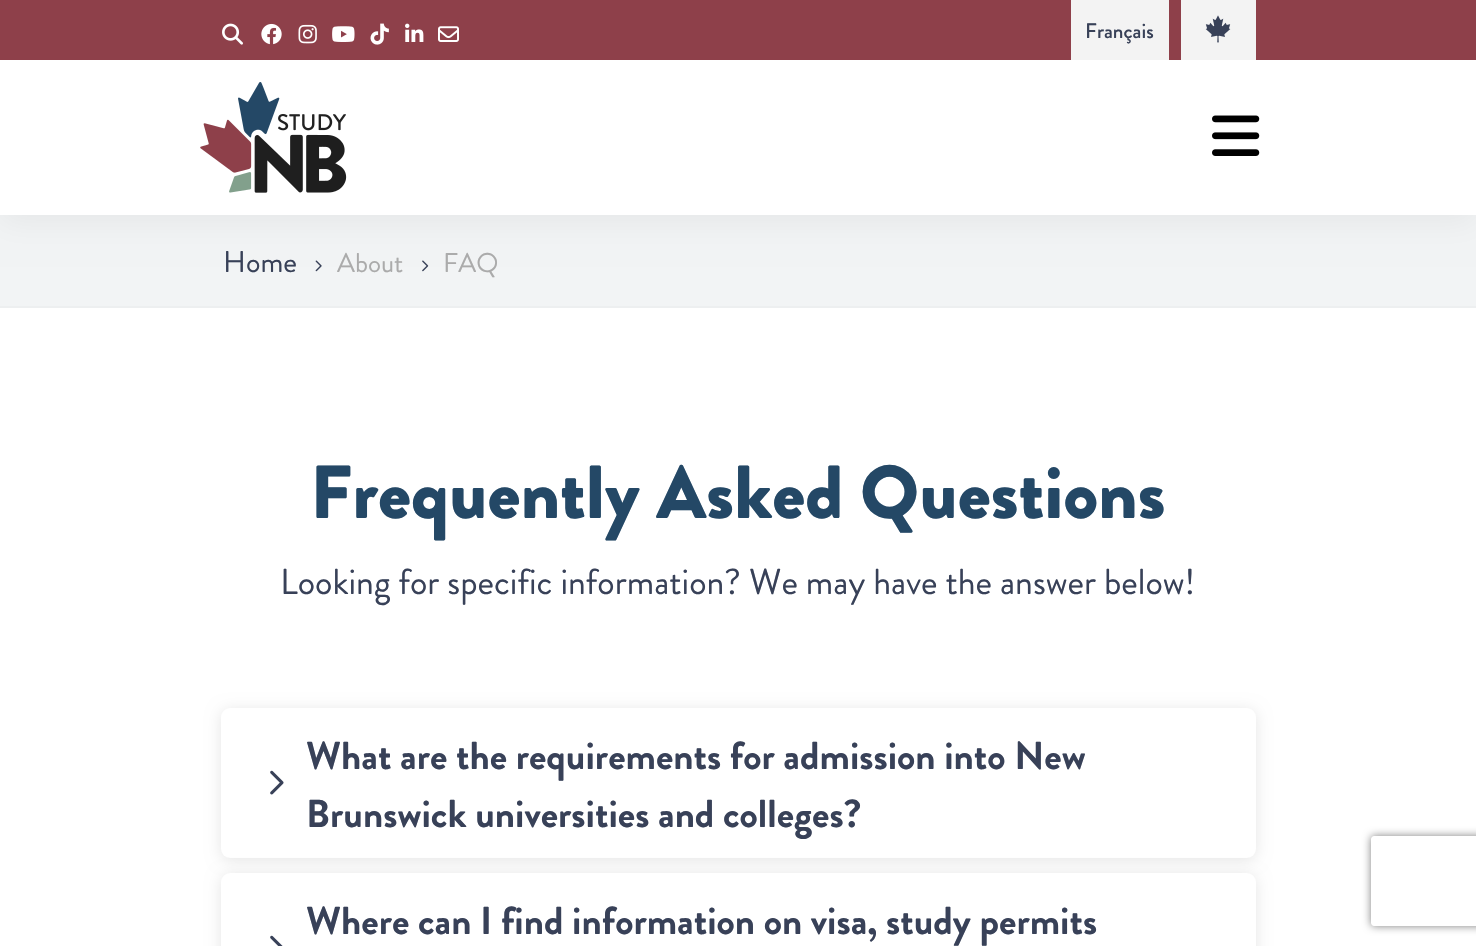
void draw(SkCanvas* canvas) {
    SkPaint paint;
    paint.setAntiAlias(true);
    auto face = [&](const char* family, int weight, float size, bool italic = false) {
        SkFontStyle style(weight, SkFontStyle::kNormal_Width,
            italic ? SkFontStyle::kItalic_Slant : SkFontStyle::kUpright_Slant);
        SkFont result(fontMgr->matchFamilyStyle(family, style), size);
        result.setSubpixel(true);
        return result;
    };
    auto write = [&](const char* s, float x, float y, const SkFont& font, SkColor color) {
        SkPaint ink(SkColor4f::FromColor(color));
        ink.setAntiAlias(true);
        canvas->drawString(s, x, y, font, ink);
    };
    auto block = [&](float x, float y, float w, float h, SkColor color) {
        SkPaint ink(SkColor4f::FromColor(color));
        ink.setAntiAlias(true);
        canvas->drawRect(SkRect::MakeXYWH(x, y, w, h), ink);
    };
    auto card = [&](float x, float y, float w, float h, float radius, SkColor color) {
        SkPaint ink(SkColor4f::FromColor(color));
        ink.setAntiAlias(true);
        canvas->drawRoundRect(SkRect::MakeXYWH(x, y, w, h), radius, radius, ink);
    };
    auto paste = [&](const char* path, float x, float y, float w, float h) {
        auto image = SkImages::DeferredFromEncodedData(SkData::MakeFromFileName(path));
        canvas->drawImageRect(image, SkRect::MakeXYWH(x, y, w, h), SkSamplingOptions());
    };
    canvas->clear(SK_ColorWHITE);
    block(0, 215, 1476, 91, SkColorSetRGB(242, 244, 245));
    paste("pic11.png", 315, 260, 7, 12);
    paste("pic12.png", 422, 260, 7, 12);
    paint.setColor(SkColorSetARGB(13, 0, 0, 0));
    paint.setMaskFilter(SkMaskFilter::MakeBlur(kNormal_SkBlurStyle, 15));
    canvas->drawRect(SkRect::MakeXYWH(0, 8, 1476, 214), paint);
    paint.setMaskFilter(nullptr);
    block(0, 0, 1476, 60, SkColorSetRGB(142, 64, 74));
    paste("pic1.png", 222, 23, 21, 22);
    paste("pic2.png", 261, 23, 21, 22);
    paste("pic3.png", 298, 24, 19, 20);
    paste("pic4.png", 332, 26, 23, 16);
    paste("pic5.png", 370, 23, 19, 22);
    paste("pic6.png", 405, 23, 19, 19);
    paste("pic7.png", 438, 26, 21, 16);
    block(1071, 0, 98, 60, SkColorSetRGB(243, 243, 243));
    auto kFont1 = face("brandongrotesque", 500, 21);
    write("Français", 1085, 38, kFont1, SkColorSetRGB(56, 65, 88));
    block(1181, 0, 75, 60, SkColorSetRGB(243, 243, 243));
    paste("pic8.png", 1205, 15, 26, 28);
    block(0, 60, 1476, 155, SK_ColorWHITE);
    paste("pic9.png", 200, 82, 147, 111);
    paste("pic10.png", 1212, 115, 48, 41);
    block(0, 306, 1476, 2, SkColorSetRGB(237, 239, 240));
    auto kFont2 = face("brandongrotesque", 400, 30);
    write("Home", 223, 272, kFont2, SkColorSetRGB(56, 65, 88));
    auto kFont3 = face("brandongrotesque", 400, 27);
    write("About", 337, 272, kFont3, SkColorSetRGB(171, 171, 171));
    write("FAQ", 443, 272, kFont3, SkColorSetRGB(171, 171, 171));
    auto kFont4 = face("brandongrotesque", 900, 75);
    write("Frequently Asked Questions", 310, 518, kFont4, SkColorSetRGB(36, 72, 102));
    auto kFont5 = face("brandongrotesque", 400, 36);
    write("Looking for specific information? We may have the answer below!", 280, 594, kFont5, SkColorSetRGB(56, 65, 88));
    paint.setColor(SkColorSetARGB(26, 0, 0, 0));
    paint.setMaskFilter(SkMaskFilter::MakeBlur(kNormal_SkBlurStyle, 7.5f));
    canvas->drawRoundRect(SkRect::MakeXYWH(221, 710, 1035, 150), 9, 9, paint);
    paint.setMaskFilter(nullptr);
    card(221, 708, 1035, 150, 9, SK_ColorWHITE);
    paste("pic13.png", 270, 770, 14, 25);
    auto kFont6 = face("brandongrotesque", 700, 39);
    write("What are the requirements for admission into New", 306, 769, kFont6, SkColorSetRGB(56, 65, 88));
    write("Brunswick universities and colleges?", 306, 827, kFont6, SkColorSetRGB(56, 65, 88));
    paint.setMaskFilter(SkMaskFilter::MakeBlur(kNormal_SkBlurStyle, 7.5f));
    canvas->drawRoundRect(SkRect::MakeXYWH(221, 875, 1035, 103), 9, 9, paint);
    paint.setMaskFilter(nullptr);
    card(221, 873, 1035, 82, 9, SK_ColorWHITE);
    paste("pic14.png", 270, 935, 13, 11);
    write("Where can I find information on visa, study permits", 306, 934, kFont6, SkColorSetRGB(56, 65, 88));
    canvas->save();
    canvas->clipPath(SkPathBuilder(SkPathFillType::kEvenOdd).moveTo(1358, 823).lineTo(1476, 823).lineTo(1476, 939).lineTo(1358, 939).close().moveTo(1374, 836).lineTo(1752, 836).cubicTo(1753.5f, 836, 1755, 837.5f, 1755, 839).lineTo(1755, 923).cubicTo(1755, 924.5f, 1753.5f, 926, 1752, 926).lineTo(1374, 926).cubicTo(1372.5f, 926, 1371, 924.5f, 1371, 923).lineTo(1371, 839).cubicTo(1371, 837.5f, 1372.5f, 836, 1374, 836).close().detach(), true);
    paint.setColor(SkColorSetRGB(128, 128, 128));
    paint.setMaskFilter(SkMaskFilter::MakeBlur(kNormal_SkBlurStyle, 4));
    canvas->drawRoundRect(SkRect::MakeXYWH(1371, 836, 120, 90), 3, 3, paint);
    paint.setMaskFilter(nullptr);
    canvas->restore();
}
